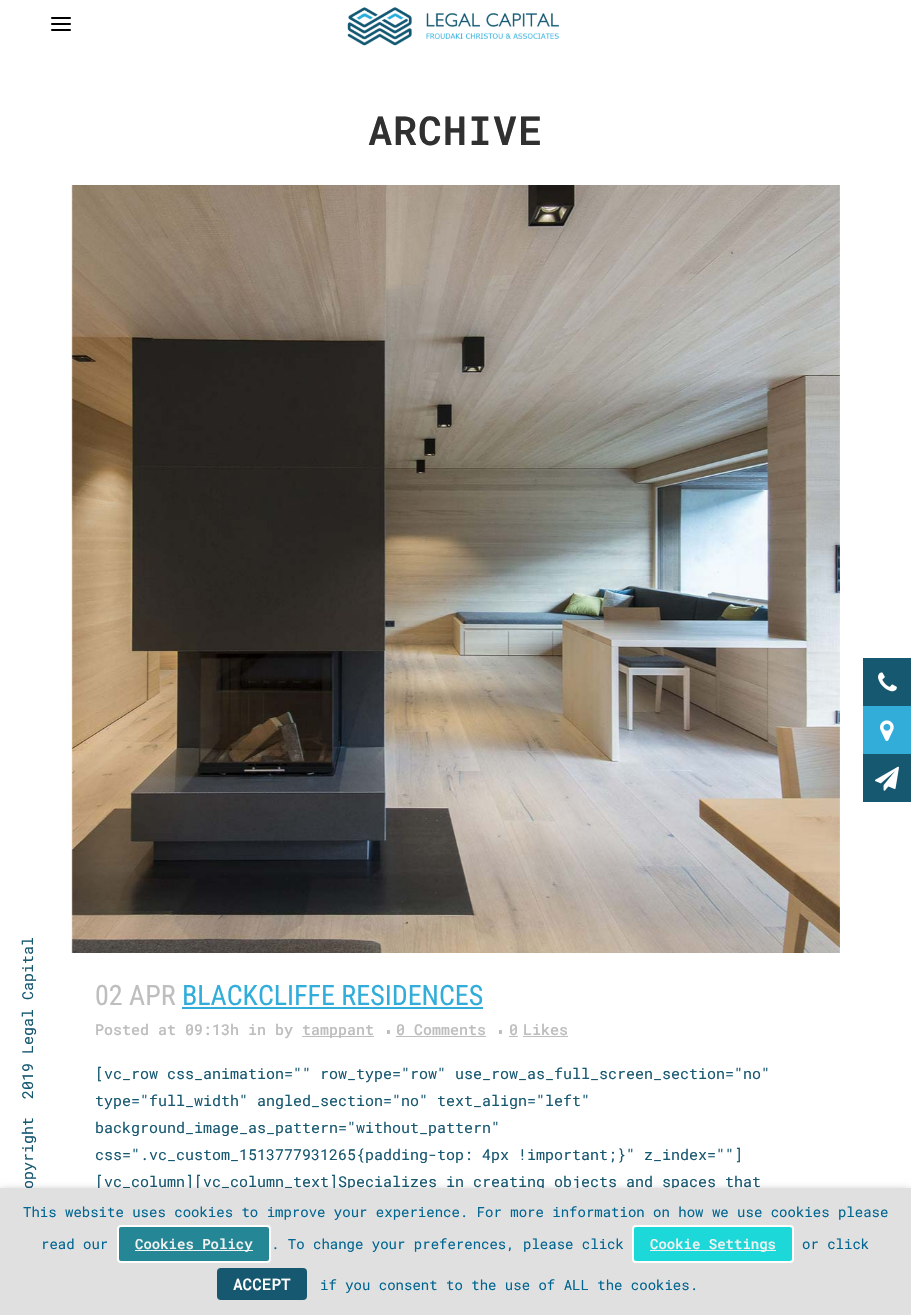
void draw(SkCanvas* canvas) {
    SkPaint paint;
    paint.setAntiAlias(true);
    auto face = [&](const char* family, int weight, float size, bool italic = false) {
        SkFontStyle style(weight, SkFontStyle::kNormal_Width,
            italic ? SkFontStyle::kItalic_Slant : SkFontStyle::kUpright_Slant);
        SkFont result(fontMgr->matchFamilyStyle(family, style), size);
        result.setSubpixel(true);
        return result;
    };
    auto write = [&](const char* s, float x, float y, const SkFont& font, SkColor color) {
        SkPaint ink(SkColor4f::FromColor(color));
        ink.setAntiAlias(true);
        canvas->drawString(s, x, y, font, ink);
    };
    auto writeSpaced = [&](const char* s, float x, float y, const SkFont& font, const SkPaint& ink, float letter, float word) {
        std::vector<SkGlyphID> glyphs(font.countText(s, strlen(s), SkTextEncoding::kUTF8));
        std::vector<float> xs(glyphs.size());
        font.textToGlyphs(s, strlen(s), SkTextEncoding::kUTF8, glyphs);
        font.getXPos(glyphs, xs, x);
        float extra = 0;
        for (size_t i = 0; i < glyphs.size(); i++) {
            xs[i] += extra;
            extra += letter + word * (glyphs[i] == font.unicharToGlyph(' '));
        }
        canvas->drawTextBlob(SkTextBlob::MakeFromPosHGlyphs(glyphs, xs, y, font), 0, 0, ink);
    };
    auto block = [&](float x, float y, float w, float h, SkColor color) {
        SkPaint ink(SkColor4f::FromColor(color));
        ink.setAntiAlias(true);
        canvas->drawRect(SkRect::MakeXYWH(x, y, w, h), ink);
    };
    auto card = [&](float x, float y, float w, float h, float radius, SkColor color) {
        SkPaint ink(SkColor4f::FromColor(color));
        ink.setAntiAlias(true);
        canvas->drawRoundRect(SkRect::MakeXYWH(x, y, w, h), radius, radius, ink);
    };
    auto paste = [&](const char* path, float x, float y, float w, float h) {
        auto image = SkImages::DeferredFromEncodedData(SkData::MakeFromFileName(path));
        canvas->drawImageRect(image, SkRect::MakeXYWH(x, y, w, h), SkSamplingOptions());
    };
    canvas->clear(SK_ColorWHITE);
    paste("pic1.png", 51, 17, 20, 14);
    paste("pic2.png", 347, 7, 212, 39);
    auto kFont1 = face("Roboto Mono", 400, 15);
    canvas->save();
    canvas->rotate(-90, 33, 1216);
    write("© Copyright  2019 Legal Capital", 33, 1216, kFont1, SkColorSetRGB(23, 88, 113));
    canvas->restore();
    auto kFont2 = face("Roboto Mono", 600, 40);
    paint.setColor(SkColorSetRGB(48, 48, 48));
    writeSpaced("ARCHIVE", 368, 145, kFont2, paint, 1, 0);
    paste("pic3.png", 71, 185, 769, 768);
    auto kFont3 = face("Roboto Condensed", 400, 28);
    write("02 APR", 95, 1005, kFont3, SkColorSetRGB(190, 190, 190));
    write("BLACKCLIFFE RESIDENCES", 182, 1005, kFont3, SkColorSetRGB(50, 173, 218));
    block(182, 1007, 301, 2, SkColorSetRGB(50, 173, 218));
    auto kFont4 = face("Roboto Mono", 500, 15);
    write("Posted at 09:13h in by", 95, 1035, kFont4, SkColorSetRGB(190, 190, 190));
    block(302, 1036, 72, 1, SkColorSetRGB(190, 190, 190));
    write("tamppant", 302, 1035, kFont4, SkColorSetRGB(190, 190, 190));
    block(387, 1030, 3, 4, SkColorSetRGB(190, 190, 190));
    write("0 Comments", 396, 1035, kFont4, SkColorSetRGB(190, 190, 190));
    block(396, 1036, 90, 1, SkColorSetRGB(190, 190, 190));
    block(499, 1030, 3, 4, SkColorSetRGB(190, 190, 190));
    write("0", 509, 1035, kFont4, SkColorSetRGB(190, 190, 190));
    block(509, 1036, 9, 1, SkColorSetRGB(190, 190, 190));
    write("Likes", 523, 1035, kFont4, SkColorSetRGB(190, 190, 190));
    block(523, 1036, 45, 1, SkColorSetRGB(190, 190, 190));
    write("[vc_row css_animation=\"\" row_type=\"row\" use_row_as_full_screen_section=\"no\"", 95, 1079, kFont1, SkColorSetRGB(23, 88, 113));
    write("type=\"full_width\" angled_section=\"no\" text_align=\"left\"", 95, 1106, kFont1, SkColorSetRGB(23, 88, 113));
    write("background_image_as_pattern=\"without_pattern\"", 95, 1133, kFont1, SkColorSetRGB(23, 88, 113));
    write("css=\".vc_custom_1513777931265{padding-top: 4px !important;}\" z_index=\"\"]", 95, 1160, kFont1, SkColorSetRGB(23, 88, 113));
    write("[vc_column][vc_column_text]Specializes in creating objects and spaces that", 95, 1187, kFont1, SkColorSetRGB(23, 88, 113));
    block(863, 658, 48, 48, SkColorSetRGB(23, 88, 113));
    paste("pic4.png", 878, 672, 19, 20);
    block(863, 706, 48, 48, SkColorSetRGB(50, 173, 218));
    paste("pic5.png", 880, 720, 14, 21);
    block(863, 754, 48, 48, SkColorSetRGB(23, 88, 113));
    paste("pic6.png", 875, 766, 24, 25);
    paint.setColor(SkColorSetARGB(128, 0, 0, 0));
    paint.setMaskFilter(SkMaskFilter::MakeBlur(kNormal_SkBlurStyle, 5));
    canvas->drawRect(SkRect::MakeXYWH(0, 1193, 911, 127), paint);
    paint.setMaskFilter(nullptr);
    block(0, 1188, 911, 127, SkColorSetRGB(224, 224, 224));
    auto kFont5 = face("Roboto Mono", 400, 14);
    write("This website uses cookies to improve your experience. For more information on how we use cookies please", 23, 1217, kFont5, SkColorSetRGB(1, 102, 145));
    write("read our", 41, 1249, kFont5, SkColorSetRGB(1, 102, 145));
    paint.setColor(SkColorSetRGB(37, 135, 150));
    canvas->drawRoundRect(SkRect::MakeXYWH(118, 1226, 152, 36), 3, 3, paint);
    paint.setStyle(SkPaint::kStroke_Style);
    paint.setStrokeWidth(2);
    paint.setColor(SK_ColorWHITE);
    canvas->drawRoundRect(SkRect::MakeXYWH(118, 1226, 152, 36), 3, 3, paint);
    block(135, 1250, 118, 1, SkColorSetRGB(242, 242, 242));
    auto kFont6 = face("Roboto Mono", 500, 14);
    write("Cookies Policy", 135, 1249, kFont6, SkColorSetRGB(242, 242, 242));
    write(". To change your preferences, please click", 271, 1249, kFont5, SkColorSetRGB(1, 102, 145));
    paint.setStyle(SkPaint::kFill_Style);
    paint.setColor(SkColorSetRGB(28, 216, 216));
    canvas->drawRoundRect(SkRect::MakeXYWH(633, 1226, 160, 36), 3, 3, paint);
    paint.setStyle(SkPaint::kStroke_Style);
    paint.setColor(SK_ColorWHITE);
    canvas->drawRoundRect(SkRect::MakeXYWH(633, 1226, 160, 36), 3, 3, paint);
    block(650, 1250, 126, 1, SkColorSetRGB(242, 242, 242));
    write("Cookie Settings", 650, 1249, kFont6, SkColorSetRGB(242, 242, 242));
    write("or click", 802, 1249, kFont5, SkColorSetRGB(1, 102, 145));
    card(217, 1268, 90, 32, 4, SkColorSetRGB(23, 88, 113));
    auto kFont7 = face("Roboto Mono", 500, 16);
    write("ACCEPT", 233, 1290, kFont7, SK_ColorWHITE);
    write("if you consent to the use of ALL the cookies.", 320, 1290, kFont5, SkColorSetRGB(1, 102, 145));
}
